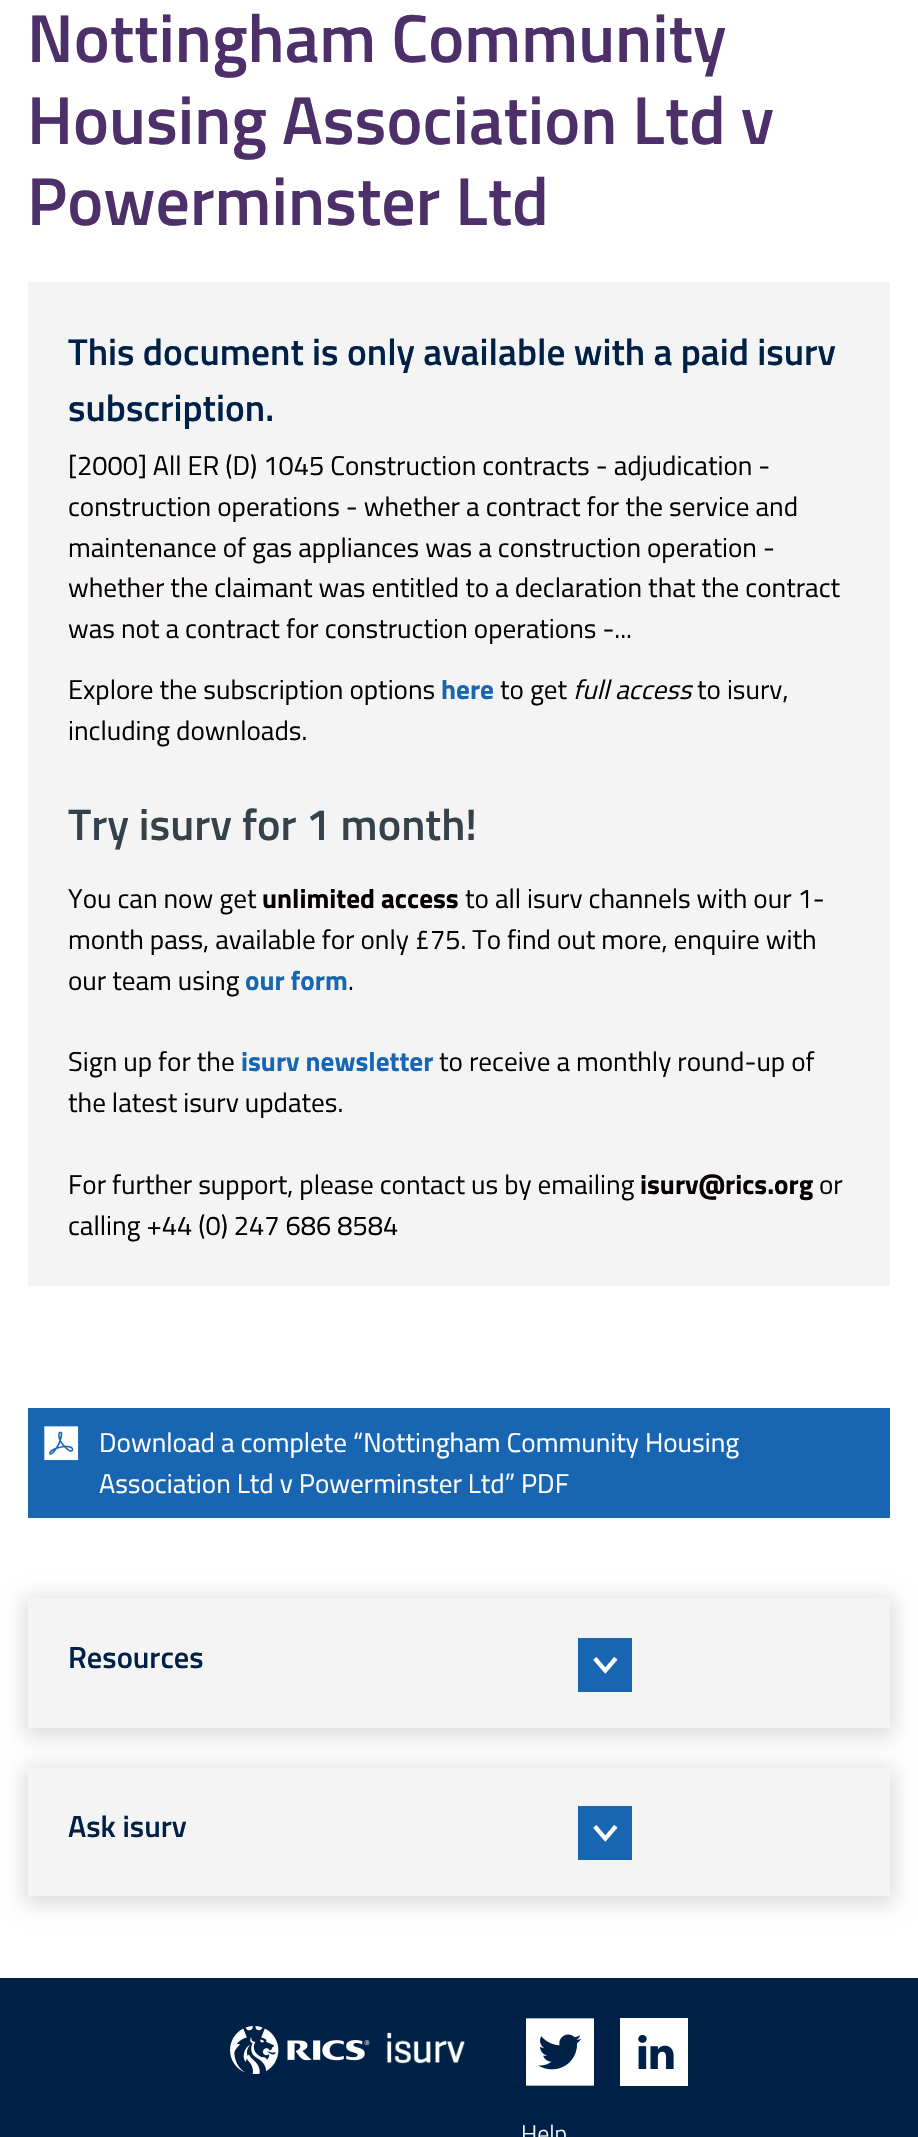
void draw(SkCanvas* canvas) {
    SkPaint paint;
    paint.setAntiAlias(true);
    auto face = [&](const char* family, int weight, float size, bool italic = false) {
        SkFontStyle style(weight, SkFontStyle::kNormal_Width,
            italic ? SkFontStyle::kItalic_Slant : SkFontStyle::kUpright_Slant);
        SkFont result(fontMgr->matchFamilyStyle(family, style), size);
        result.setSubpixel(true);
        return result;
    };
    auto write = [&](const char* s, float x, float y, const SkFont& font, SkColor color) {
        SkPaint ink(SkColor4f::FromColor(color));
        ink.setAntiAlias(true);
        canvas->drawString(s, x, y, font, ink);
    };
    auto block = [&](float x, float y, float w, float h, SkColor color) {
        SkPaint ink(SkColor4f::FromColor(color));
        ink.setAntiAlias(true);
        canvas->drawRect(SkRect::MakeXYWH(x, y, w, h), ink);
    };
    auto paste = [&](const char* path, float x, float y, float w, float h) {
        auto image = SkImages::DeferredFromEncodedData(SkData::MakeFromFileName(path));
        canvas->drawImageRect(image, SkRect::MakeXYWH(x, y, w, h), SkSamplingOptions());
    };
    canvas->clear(SK_ColorWHITE);
    auto kFont1 = face("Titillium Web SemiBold", 600, 68);
    write("Nottingham Community", 27, 62, kFont1, SkColorSetRGB(77, 48, 105));
    write("Housing Association Ltd v", 27, 144, kFont1, SkColorSetRGB(77, 48, 105));
    write("Powerminster Ltd", 27, 225, kFont1, SkColorSetRGB(77, 48, 105));
    block(28, 282, 862, 1004, SkColorSetRGB(244, 244, 244));
    auto kFont2 = face("Titillium Web SemiBold", 600, 37.4f);
    write("This document is only available with a paid isurv", 68, 365, kFont2, SkColorSetRGB(0, 33, 71));
    write("subscription.", 68, 421, kFont2, SkColorSetRGB(0, 33, 71));
    auto kFont3 = face("Titillium Web", 400, 27.2f);
    write("[2000] All ER (D) 1045 Construction contracts - adjudication -", 68, 475, kFont3, SkColorSetRGB(6, 1, 1));
    write("construction operations - whether a contract for the service and", 68, 516, kFont3, SkColorSetRGB(6, 1, 1));
    write("maintenance of gas appliances was a construction operation -", 68, 557, kFont3, SkColorSetRGB(6, 1, 1));
    write("whether the claimant was entitled to a declaration that the contract", 68, 597, kFont3, SkColorSetRGB(6, 1, 1));
    write("was not a contract for construction operations -...", 68, 638, kFont3, SkColorSetRGB(6, 1, 1));
    write("Explore the subscription options", 68, 699, kFont3, SkColorSetRGB(6, 1, 1));
    auto kFont4 = face("Titillium Web", 700, 27.2f);
    write("here", 441, 699, kFont4, SkColorSetRGB(24, 101, 178));
    write("to get", 500, 699, kFont3, SkColorSetRGB(6, 1, 1));
    auto kFont5 = face("Titillium Web", 400, 27.2f, true);
    write("full access", 573, 699, kFont5, SkColorSetRGB(6, 1, 1));
    write("to isurv,", 697, 699, kFont3, SkColorSetRGB(6, 1, 1));
    write("including downloads.", 68, 740, kFont3, SkColorSetRGB(6, 1, 1));
    auto kFont6 = face("Titillium Web SemiBold", 600, 44.25f);
    write("Try isurv for 1 month!", 68, 840, kFont6, SkColorSetRGB(54, 66, 74));
    write("You can now get", 68, 908, kFont3, SkColorSetRGB(6, 1, 1));
    write("unlimited access", 262, 908, kFont4, SkColorSetRGB(6, 1, 1));
    write("to all isurv channels with our 1-", 465, 908, kFont3, SkColorSetRGB(6, 1, 1));
    write("month pass, available for only £75. To find out more, enquire with", 68, 949, kFont3, SkColorSetRGB(6, 1, 1));
    write("our team using", 68, 990, kFont3, SkColorSetRGB(6, 1, 1));
    write("our form", 245, 990, kFont4, SkColorSetRGB(24, 101, 178));
    write(".", 348, 990, kFont3, SkColorSetRGB(6, 1, 1));
    write("Sign up for the", 68, 1071, kFont3, SkColorSetRGB(6, 1, 1));
    write("isurv newsletter", 241, 1071, kFont4, SkColorSetRGB(24, 101, 178));
    write("to receive a monthly round-up of", 439, 1071, kFont3, SkColorSetRGB(6, 1, 1));
    write("the latest isurv updates.", 68, 1112, kFont3, SkColorSetRGB(6, 1, 1));
    write("For further support, please contact us by emailing", 68, 1194, kFont3, SkColorSetRGB(6, 1, 1));
    write("isurv@rics.org", 640, 1194, kFont4, SkColorSetRGB(6, 1, 1));
    write("or", 819, 1194, kFont3, SkColorSetRGB(6, 1, 1));
    write("calling +44 (0) 247 686 8584", 68, 1235, kFont3, SkColorSetRGB(6, 1, 1));
    block(28, 1408, 862, 110, SkColorSetRGB(24, 101, 178));
    paste("pic1.png", 44, 1426, 35, 35);
    write("Download a complete “Nottingham Community Housing", 99, 1452, kFont3, SK_ColorWHITE);
    write("Association Ltd v Powerminster Ltd” PDF", 99, 1493, kFont3, SK_ColorWHITE);
    paint.setColor(SkColorSetRGB(219, 219, 219));
    paint.setMaskFilter(SkMaskFilter::MakeBlur(kNormal_SkBlurStyle, 10));
    canvas->drawRect(SkRect::MakeXYWH(24, 1598, 870, 138), paint);
    paint.setMaskFilter(nullptr);
    block(28, 1598, 862, 130, SkColorSetRGB(244, 244, 244));
    auto kFont7 = face("Titillium Web SemiBold", 600, 30.5f);
    write("Resources", 68, 1668, kFont7, SkColorSetRGB(0, 33, 71));
    block(578, 1638, 54, 54, SkColorSetRGB(24, 101, 178));
    paste("pic2.png", 593, 1657, 25, 17);
    paint.setMaskFilter(SkMaskFilter::MakeBlur(kNormal_SkBlurStyle, 10));
    canvas->drawRect(SkRect::MakeXYWH(24, 1768, 870, 136), paint);
    paint.setMaskFilter(nullptr);
    block(28, 1768, 862, 128, SkColorSetRGB(244, 244, 244));
    write("Ask isurv", 68, 1837, kFont7, SkColorSetRGB(0, 33, 71));
    block(578, 1806, 54, 54, SkColorSetRGB(24, 101, 178));
    paste("pic2.png", 593, 1825, 25, 17);
    block(0, 1978, 918, 159, SkColorSetRGB(0, 33, 71));
    paste("pic3.png", 230, 2026, 140, 48);
    paste("pic4.png", 386, 2032, 79, 32);
    paste("pic5.png", 526, 2018, 68, 68);
    paste("pic6.png", 620, 2018, 68, 68);
    auto kFont8 = face("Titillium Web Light", 300, 24);
    write("Help", 521, 2142, kFont8, SK_ColorWHITE);
}
